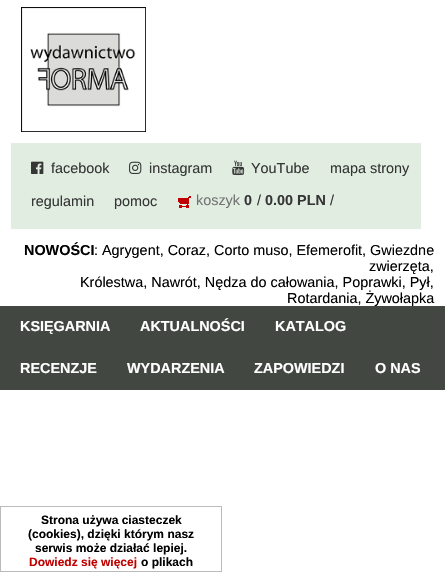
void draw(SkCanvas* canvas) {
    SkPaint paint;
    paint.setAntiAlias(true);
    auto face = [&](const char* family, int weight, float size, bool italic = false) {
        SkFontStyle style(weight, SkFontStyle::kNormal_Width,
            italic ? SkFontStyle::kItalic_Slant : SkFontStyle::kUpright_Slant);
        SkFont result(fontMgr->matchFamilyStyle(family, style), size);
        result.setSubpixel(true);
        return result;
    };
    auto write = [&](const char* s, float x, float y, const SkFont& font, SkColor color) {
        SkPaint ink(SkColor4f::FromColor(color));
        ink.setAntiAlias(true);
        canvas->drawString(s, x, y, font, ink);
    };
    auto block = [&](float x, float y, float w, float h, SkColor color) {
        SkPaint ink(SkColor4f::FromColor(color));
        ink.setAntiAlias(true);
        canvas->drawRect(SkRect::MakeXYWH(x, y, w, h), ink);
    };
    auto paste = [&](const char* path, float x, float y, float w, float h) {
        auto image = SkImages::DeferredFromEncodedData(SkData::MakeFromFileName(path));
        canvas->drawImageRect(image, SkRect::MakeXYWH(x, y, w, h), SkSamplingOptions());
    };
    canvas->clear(SK_ColorWHITE);
    paste("pic1.png", 21, 7, 125, 125);
    block(11, 143, 410, 86, SkColorSetRGB(225, 237, 225));
    paste("pic2.png", 31, 161, 13, 13);
    auto kFont1 = face("Liberation Sans", 400, 14.4f);
    write("facebook", 51, 173, kFont1, SkColorSetRGB(54, 54, 54));
    paste("pic3.png", 129, 161, 13, 13);
    write("instagram", 149, 173, kFont1, SkColorSetRGB(54, 54, 54));
    paste("pic4.png", 232, 160, 13, 16);
    write("YouTube", 251, 173, kFont1, SkColorSetRGB(54, 54, 54));
    write("mapa strony", 330, 173, kFont1, SkColorSetRGB(54, 54, 54));
    write("regulamin", 31, 206, kFont1, SkColorSetRGB(54, 54, 54));
    write("pomoc", 114, 206, kFont1, SkColorSetRGB(54, 54, 54));
    paste("pic5.png", 178, 196, 13, 12);
    write("koszyk", 196, 205, kFont1, SkColorSetRGB(116, 116, 116));
    auto kFont2 = face("Liberation Sans", 700, 14.4f);
    write("0", 244, 205, kFont2, SkColorSetRGB(54, 54, 54));
    write("/", 257, 205, kFont1, SkColorSetRGB(54, 54, 54));
    write("0.00 PLN", 265, 205, kFont2, SkColorSetRGB(54, 54, 54));
    write("/", 330, 205, kFont1, SkColorSetRGB(54, 54, 54));
    write("NOWOŚCI", 24, 255, kFont2, SK_ColorBLACK);
    write(": Agrygent, Coraz, Corto muso, Efemerofit, Gwiezdne", 94, 255, kFont1, SK_ColorBLACK);
    write("zwierzęta,", 369, 271, kFont1, SK_ColorBLACK);
    write("Królestwa, Nawrót, Nędza do całowania, Poprawki, Pył,", 80, 287, kFont1, SK_ColorBLACK);
    write("Rotardania, Żywołapka", 287, 303, kFont1, SK_ColorBLACK);
    block(0, 306, 445, 84, SkColorSetRGB(66, 71, 65));
    write("KSIĘGARNIA", 20, 331, kFont2, SK_ColorWHITE);
    write("AKTUALNOŚCI", 140, 331, kFont2, SK_ColorWHITE);
    write("KATALOG", 275, 331, kFont2, SK_ColorWHITE);
    write("RECENZJE", 20, 373, kFont2, SK_ColorWHITE);
    write("WYDARZENIA", 127, 373, kFont2, SK_ColorWHITE);
    write("ZAPOWIEDZI", 254, 373, kFont2, SK_ColorWHITE);
    write("O NAS", 375, 373, kFont2, SK_ColorWHITE);
    paint.setStyle(SkPaint::kStroke_Style);
    paint.setStrokeWidth(1);
    paint.setColor(SkColorSetRGB(187, 187, 187));
    canvas->drawRect(SkRect::MakeXYWH(0.5f, 506.5f, 221, 65), paint);
    auto kFont3 = face("Liberation Sans", 700, 12);
    write("Strona używa ciasteczek", 41, 524, kFont3, SK_ColorBLACK);
    write("(cookies), dzięki którym nasz", 28, 538, kFont3, SK_ColorBLACK);
    write("serwis może działać lepiej.", 35, 552, kFont3, SK_ColorBLACK);
    write("Dowiedz się więcej", 29, 566, kFont3, SkColorSetRGB(193, 0, 0));
    write("o plikach", 141, 566, kFont3, SK_ColorBLACK);
}
